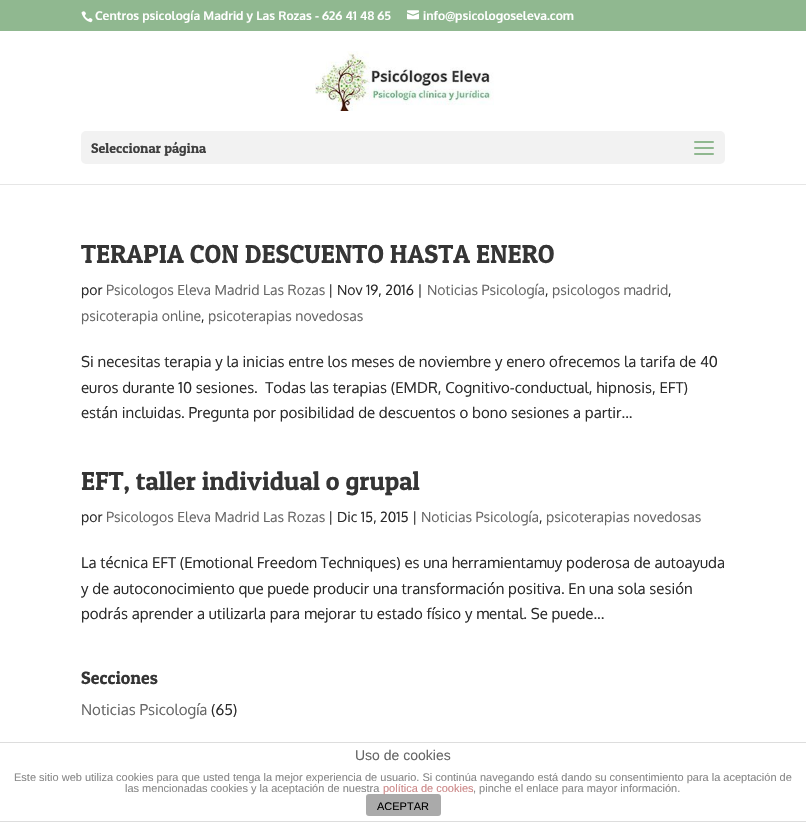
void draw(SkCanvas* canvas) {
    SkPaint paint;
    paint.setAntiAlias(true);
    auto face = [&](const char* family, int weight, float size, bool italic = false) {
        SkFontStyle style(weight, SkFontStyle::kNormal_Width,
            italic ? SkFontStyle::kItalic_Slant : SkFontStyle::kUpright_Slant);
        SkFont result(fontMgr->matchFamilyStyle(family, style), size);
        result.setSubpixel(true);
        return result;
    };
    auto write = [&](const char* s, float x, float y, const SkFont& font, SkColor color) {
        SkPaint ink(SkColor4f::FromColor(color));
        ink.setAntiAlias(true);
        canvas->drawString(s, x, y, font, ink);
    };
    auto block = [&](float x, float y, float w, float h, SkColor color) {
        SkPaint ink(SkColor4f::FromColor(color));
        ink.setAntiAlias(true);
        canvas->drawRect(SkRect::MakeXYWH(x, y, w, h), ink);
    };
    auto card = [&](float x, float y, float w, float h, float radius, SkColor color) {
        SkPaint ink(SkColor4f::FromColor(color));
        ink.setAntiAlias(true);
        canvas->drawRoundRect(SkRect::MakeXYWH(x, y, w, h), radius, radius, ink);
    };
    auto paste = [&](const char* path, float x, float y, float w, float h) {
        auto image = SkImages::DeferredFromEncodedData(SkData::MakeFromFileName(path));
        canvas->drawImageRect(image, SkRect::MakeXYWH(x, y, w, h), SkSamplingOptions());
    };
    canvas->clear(SK_ColorWHITE);
    block(0, 0, 806, 31, SkColorSetRGB(144, 184, 144));
    paste("pic1.png", 81, 11, 12, 12);
    auto kFont1 = face("Oxygen", 700, 12);
    write("Centros psicología Madrid y Las Rozas - 626 41 48 65", 95, 20, kFont1, SK_ColorWHITE);
    paste("pic2.png", 407, 10, 12, 10);
    write("info@psicologoseleva.com", 423, 20, kFont1, SK_ColorWHITE);
    block(0, 184, 806, 1, SkColorSetRGB(230, 230, 230));
    paste("pic3.png", 315, 51, 179, 60);
    card(81, 131, 644, 33, 5, SkColorSetRGB(242, 242, 242));
    auto kFont2 = face("Patua One", 400, 14);
    write("Seleccionar página", 91, 153, kFont2, SkColorSetRGB(63, 63, 63));
    paste("pic4.png", 694, 141, 20, 14);
    auto kFont3 = face("Patua One", 400, 26);
    write("TERAPIA CON DESCUENTO HASTA ENERO", 81, 263, kFont3, SkColorSetRGB(53, 53, 53));
    auto kFont4 = face("Oxygen", 400, 14);
    write("por", 81, 295, kFont4, SkColorSetRGB(43, 43, 43));
    write("Psicologos Eleva Madrid Las Rozas", 106, 295, kFont4, SkColorSetRGB(102, 102, 102));
    write("| Nov 19, 2016 |", 328, 295, kFont4, SkColorSetRGB(43, 43, 43));
    write("Noticias Psicología", 427, 295, kFont4, SkColorSetRGB(102, 102, 102));
    write(",", 545, 295, kFont4, SkColorSetRGB(43, 43, 43));
    write("psicologos madrid", 552, 295, kFont4, SkColorSetRGB(102, 102, 102));
    write(",", 668, 295, kFont4, SkColorSetRGB(43, 43, 43));
    write("psicoterapia online", 81, 321, kFont4, SkColorSetRGB(102, 102, 102));
    write(",", 201, 321, kFont4, SkColorSetRGB(43, 43, 43));
    write("psicoterapias novedosas", 208, 321, kFont4, SkColorSetRGB(102, 102, 102));
    auto kFont5 = face("Oxygen", 400, 15);
    write("Si necesitas terapia y la inicias entre los meses de noviembre y enero ofrecemos la tarifa de 40", 81, 367, kFont5, SkColorSetRGB(43, 43, 43));
    write("euros durante 10 sesiones.  Todas las terapias (EMDR, Cognitivo-conductual, hipnosis, EFT)", 81, 393, kFont5, SkColorSetRGB(43, 43, 43));
    write("están incluidas. Pregunta por posibilidad de descuentos o bono sesiones a partir...", 81, 418, kFont5, SkColorSetRGB(43, 43, 43));
    write("EFT, taller individual o grupal", 81, 490, kFont3, SkColorSetRGB(53, 53, 53));
    write("por", 81, 522, kFont4, SkColorSetRGB(43, 43, 43));
    write("Psicologos Eleva Madrid Las Rozas", 106, 522, kFont4, SkColorSetRGB(102, 102, 102));
    write("| Dic 15, 2015 |", 328, 522, kFont4, SkColorSetRGB(43, 43, 43));
    write("Noticias Psicología", 421, 522, kFont4, SkColorSetRGB(102, 102, 102));
    write(",", 539, 522, kFont4, SkColorSetRGB(43, 43, 43));
    write("psicoterapias novedosas", 546, 522, kFont4, SkColorSetRGB(102, 102, 102));
    write("La técnica EFT (Emotional Freedom Techniques) es una herramientamuy poderosa de autoayuda", 81, 568, kFont5, SkColorSetRGB(43, 43, 43));
    write("y de autoconocimiento que puede producir una transformación positiva. En una sola sesión", 81, 594, kFont5, SkColorSetRGB(43, 43, 43));
    write("podrás aprender a utilizarla para mejorar tu estado físico y mental. Se puede...", 81, 619, kFont5, SkColorSetRGB(43, 43, 43));
    auto kFont6 = face("Patua One", 400, 18);
    write("Secciones", 81, 684, kFont6, SkColorSetRGB(53, 53, 53));
    write("Noticias Psicología", 81, 715, kFont5, SkColorSetRGB(102, 102, 102));
    write("(65)", 211, 715, kFont5, SkColorSetRGB(43, 43, 43));
    block(0, 742, 806, 1, SkColorSetRGB(221, 221, 221));
    block(0, 821, 806, 1, SkColorSetRGB(221, 221, 221));
    auto kFont7 = face("Liberation Sans", 400, 14);
    write("Uso de cookies", 355, 760, kFont7, SkColorSetRGB(102, 102, 102));
    auto kFont8 = face("Liberation Sans", 400, 11);
    write("Este sitio web utiliza cookies para que usted tenga la mejor experiencia de usuario. Si continúa navegando está dando su consentimiento para la aceptación de", 14, 781, kFont8, SkColorSetRGB(136, 136, 136));
    card(366, 794, 75, 22, 3, SkColorSetRGB(170, 170, 170));
    write("las mencionadas cookies y la aceptación de nuestra", 125, 792, kFont8, SkColorSetRGB(136, 136, 136));
    write("política de cookies", 383, 792, kFont8, SkColorSetRGB(204, 136, 136));
    write(", pinche el enlace para mayor información.", 473, 792, kFont8, SkColorSetRGB(136, 136, 136));
    write("ACEPTAR", 377, 810, kFont8, SK_ColorBLACK);
}
